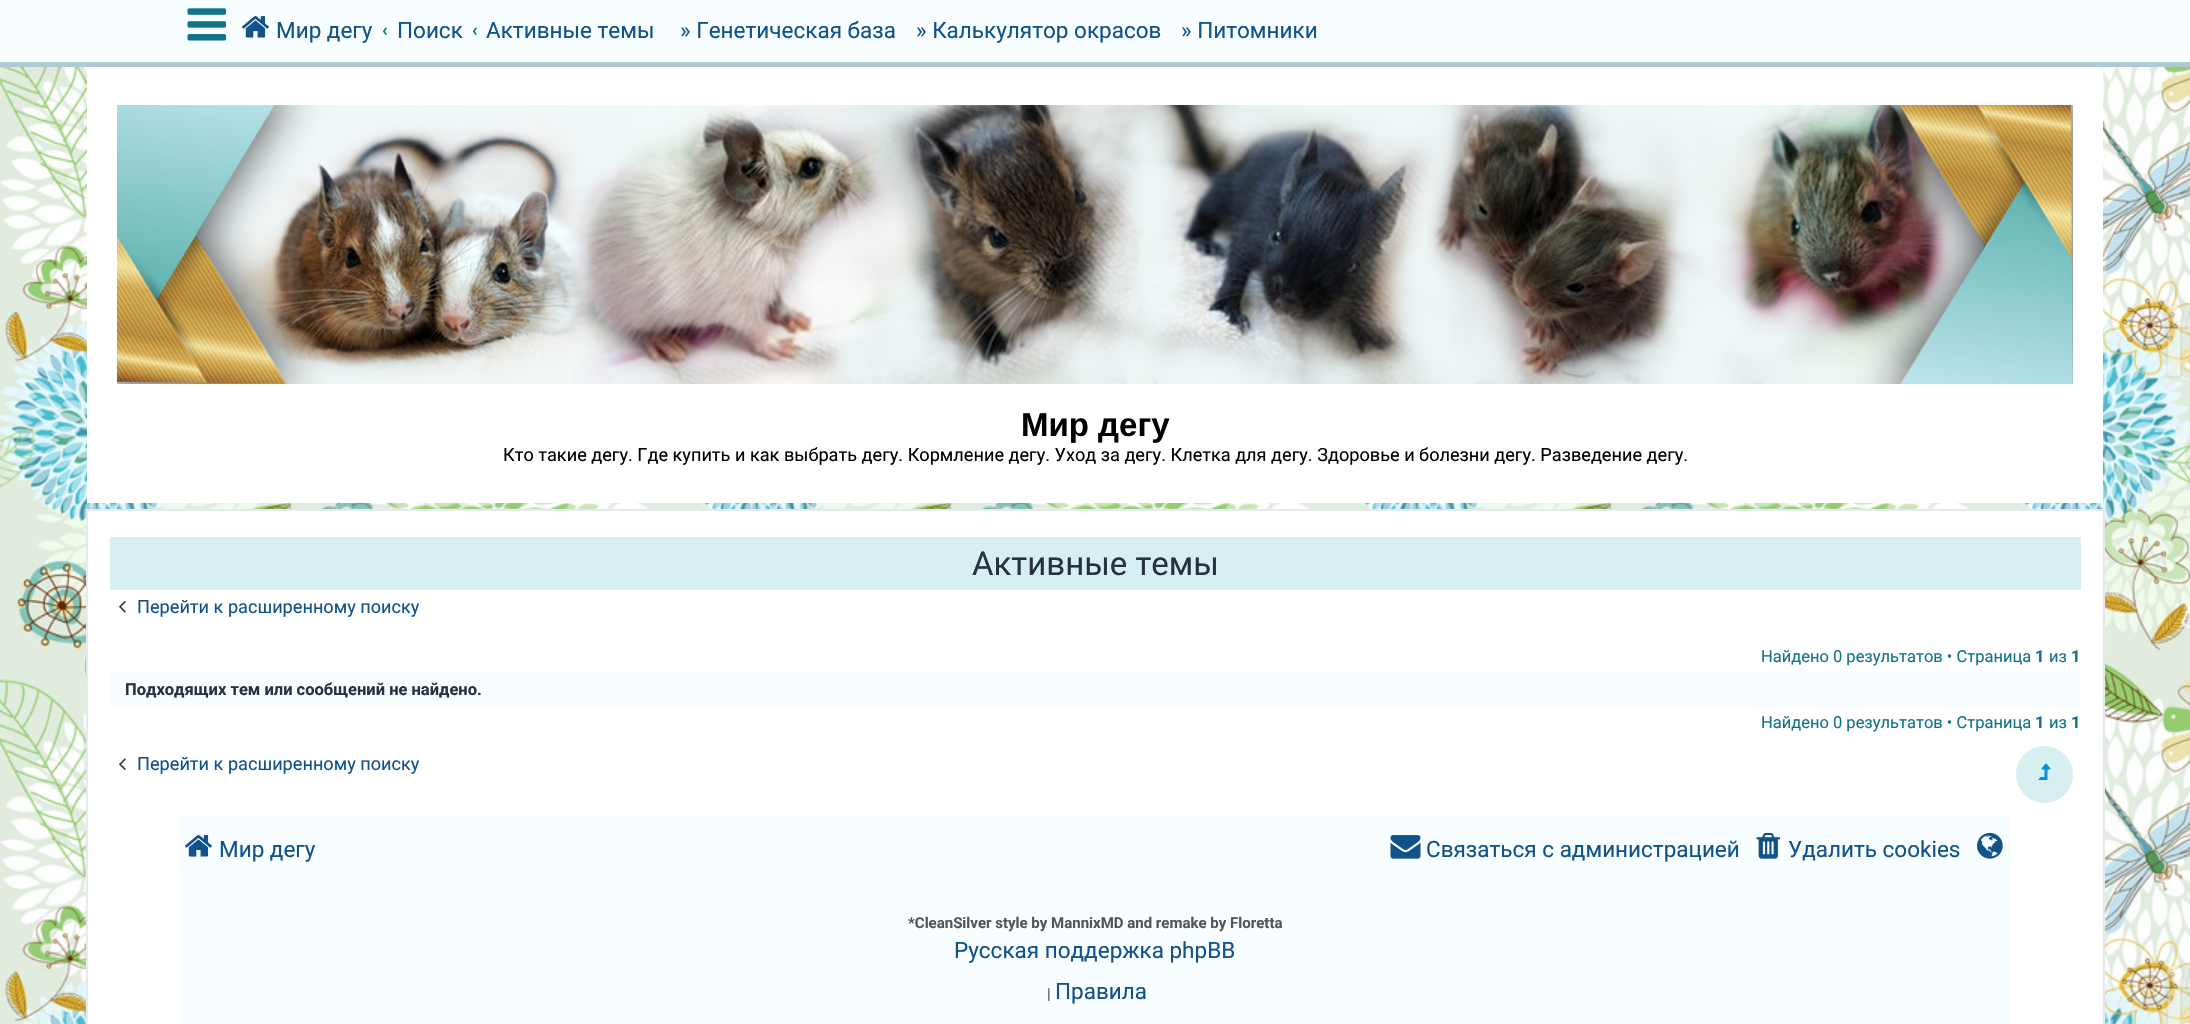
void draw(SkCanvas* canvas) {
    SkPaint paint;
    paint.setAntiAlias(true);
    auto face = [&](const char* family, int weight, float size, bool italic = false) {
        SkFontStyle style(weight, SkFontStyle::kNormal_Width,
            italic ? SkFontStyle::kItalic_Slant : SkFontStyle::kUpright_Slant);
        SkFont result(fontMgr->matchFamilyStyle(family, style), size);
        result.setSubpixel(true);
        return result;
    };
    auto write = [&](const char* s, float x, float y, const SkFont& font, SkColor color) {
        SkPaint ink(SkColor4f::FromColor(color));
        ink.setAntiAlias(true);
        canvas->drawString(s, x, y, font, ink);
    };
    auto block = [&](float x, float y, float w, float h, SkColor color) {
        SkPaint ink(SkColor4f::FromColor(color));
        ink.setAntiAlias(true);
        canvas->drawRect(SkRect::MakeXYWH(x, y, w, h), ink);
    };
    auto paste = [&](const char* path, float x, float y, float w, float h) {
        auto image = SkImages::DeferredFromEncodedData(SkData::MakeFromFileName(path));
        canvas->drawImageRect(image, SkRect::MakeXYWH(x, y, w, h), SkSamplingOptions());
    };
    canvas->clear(SK_ColorWHITE);
    paste("pic1.png", 0, 67, 2190, 957);
    block(0, 0, 2190, 62, SkColorSetRGB(248, 254, 255));
    block(0, 62, 2190, 5, SkColorSetRGB(176, 200, 212));
    paste("pic2.png", 187, 8, 40, 33);
    paste("pic3.png", 242, 16, 27, 22);
    auto kFont1 = face("Roboto", 400, 22.5f);
    write("Мир дегу", 276, 38, kFont1, SkColorSetRGB(16, 82, 137));
    auto kFont2 = face("Roboto", 700, 18.15f);
    write("‹", 382, 36, kFont2, SkColorSetRGB(16, 115, 137));
    write("Поиск", 397, 38, kFont1, SkColorSetRGB(16, 82, 137));
    write("‹", 472, 36, kFont2, SkColorSetRGB(16, 115, 137));
    write("Активные темы", 486, 38, kFont1, SkColorSetRGB(16, 82, 137));
    write("» Генетическая база", 680, 38, kFont1, SkColorSetRGB(16, 82, 137));
    write("» Калькулятор окрасов", 916, 38, kFont1, SkColorSetRGB(16, 82, 137));
    write("» Питомники", 1181, 38, kFont1, SkColorSetRGB(16, 82, 137));
    block(87, 67, 2016, 436, SK_ColorWHITE);
    paste("pic4.png", 117, 105, 1956, 279);
    auto kFont3 = face("Liberation Sans", 700, 33);
    write("Мир дегу", 1021, 436, kFont3, SK_ColorBLACK);
    auto kFont4 = face("Roboto", 400, 18.15f);
    write("Кто такие дегу. Где купить и как выбрать дегу. Кормление дегу. Уход за дегу. Клетка для дегу. Здоровье и болезни дегу. Разведение дегу.", 503, 461, kFont4, SK_ColorBLACK);
    paint.setColor(SK_ColorWHITE);
    canvas->drawRect(SkRect::MakeXYWH(87, 510, 2017, 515), paint);
    paint.setStyle(SkPaint::kStroke_Style);
    paint.setStrokeWidth(2);
    paint.setColor(SkColorSetRGB(230, 233, 237));
    canvas->drawRect(SkRect::MakeXYWH(87, 510, 2017, 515), paint);
    block(110, 537, 1971, 53, SkColorSetRGB(216, 239, 241));
    auto kFont5 = face("Roboto", 400, 33);
    write("Активные темы", 972, 575, kFont5, SkColorSetRGB(40, 49, 63));
    paste("pic5.png", 119, 601, 7, 12);
    write("Перейти к расширенному поиску", 137, 613, kFont4, SkColorSetRGB(16, 82, 137));
    auto kFont6 = face("Roboto", 400, 16.5f);
    write("Найдено 0 результатов • Страница", 1761, 662, kFont6, SkColorSetRGB(16, 115, 137));
    auto kFont7 = face("Roboto", 700, 16.5f);
    write("1", 2035, 662, kFont7, SkColorSetRGB(16, 115, 137));
    write("из", 2049, 662, kFont6, SkColorSetRGB(16, 115, 137));
    write("1", 2071, 662, kFont7, SkColorSetRGB(16, 115, 137));
    block(110, 672, 1971, 35, SkColorSetRGB(248, 254, 255));
    write("Подходящих тем или сообщений не найдено.", 125, 695, kFont7, SkColorSetRGB(40, 49, 63));
    write("Найдено 0 результатов • Страница", 1761, 728, kFont6, SkColorSetRGB(16, 115, 137));
    write("1", 2035, 728, kFont7, SkColorSetRGB(16, 115, 137));
    write("из", 2049, 728, kFont6, SkColorSetRGB(16, 115, 137));
    write("1", 2071, 728, kFont7, SkColorSetRGB(16, 115, 137));
    paste("pic6.png", 119, 758, 7, 12);
    write("Перейти к расширенному поиску", 137, 770, kFont4, SkColorSetRGB(16, 82, 137));
    paint.setStyle(SkPaint::kFill_Style);
    paint.setColor(SkColorSetRGB(216, 239, 241));
    canvas->drawCircle(2044.5f, 774.5f, 28.5f, paint);
    paste("pic7.png", 2038, 763, 13, 17);
    block(180, 816, 1830, 208, SkColorSetRGB(248, 254, 255));
    paste("pic3.png", 185, 835, 27, 22);
    write("Мир дегу", 219, 857, kFont1, SkColorSetRGB(16, 82, 137));
    paste("pic8.png", 1390, 835, 31, 24);
    write("Связаться с администрацией", 1426, 857, kFont1, SkColorSetRGB(16, 82, 137));
    paste("pic9.png", 1756, 832, 25, 27);
    write("Удалить cookies", 1788, 857, kFont1, SkColorSetRGB(16, 82, 137));
    paste("pic10.png", 1977, 832, 26, 27);
    auto kFont8 = face("Roboto", 700, 15);
    write("*CleanSilver style by MannixMD and remake by Floretta", 908, 928, kFont8, SkColorSetRGB(85, 85, 85));
    write("Русская поддержка phpBB", 954, 958, kFont1, SkColorSetRGB(16, 82, 137));
    auto kFont9 = face("Roboto", 400, 15);
    write("|", 1047, 999, kFont9, SkColorSetRGB(85, 85, 85));
    write("Правила", 1055, 999, kFont1, SkColorSetRGB(16, 82, 137));
}
